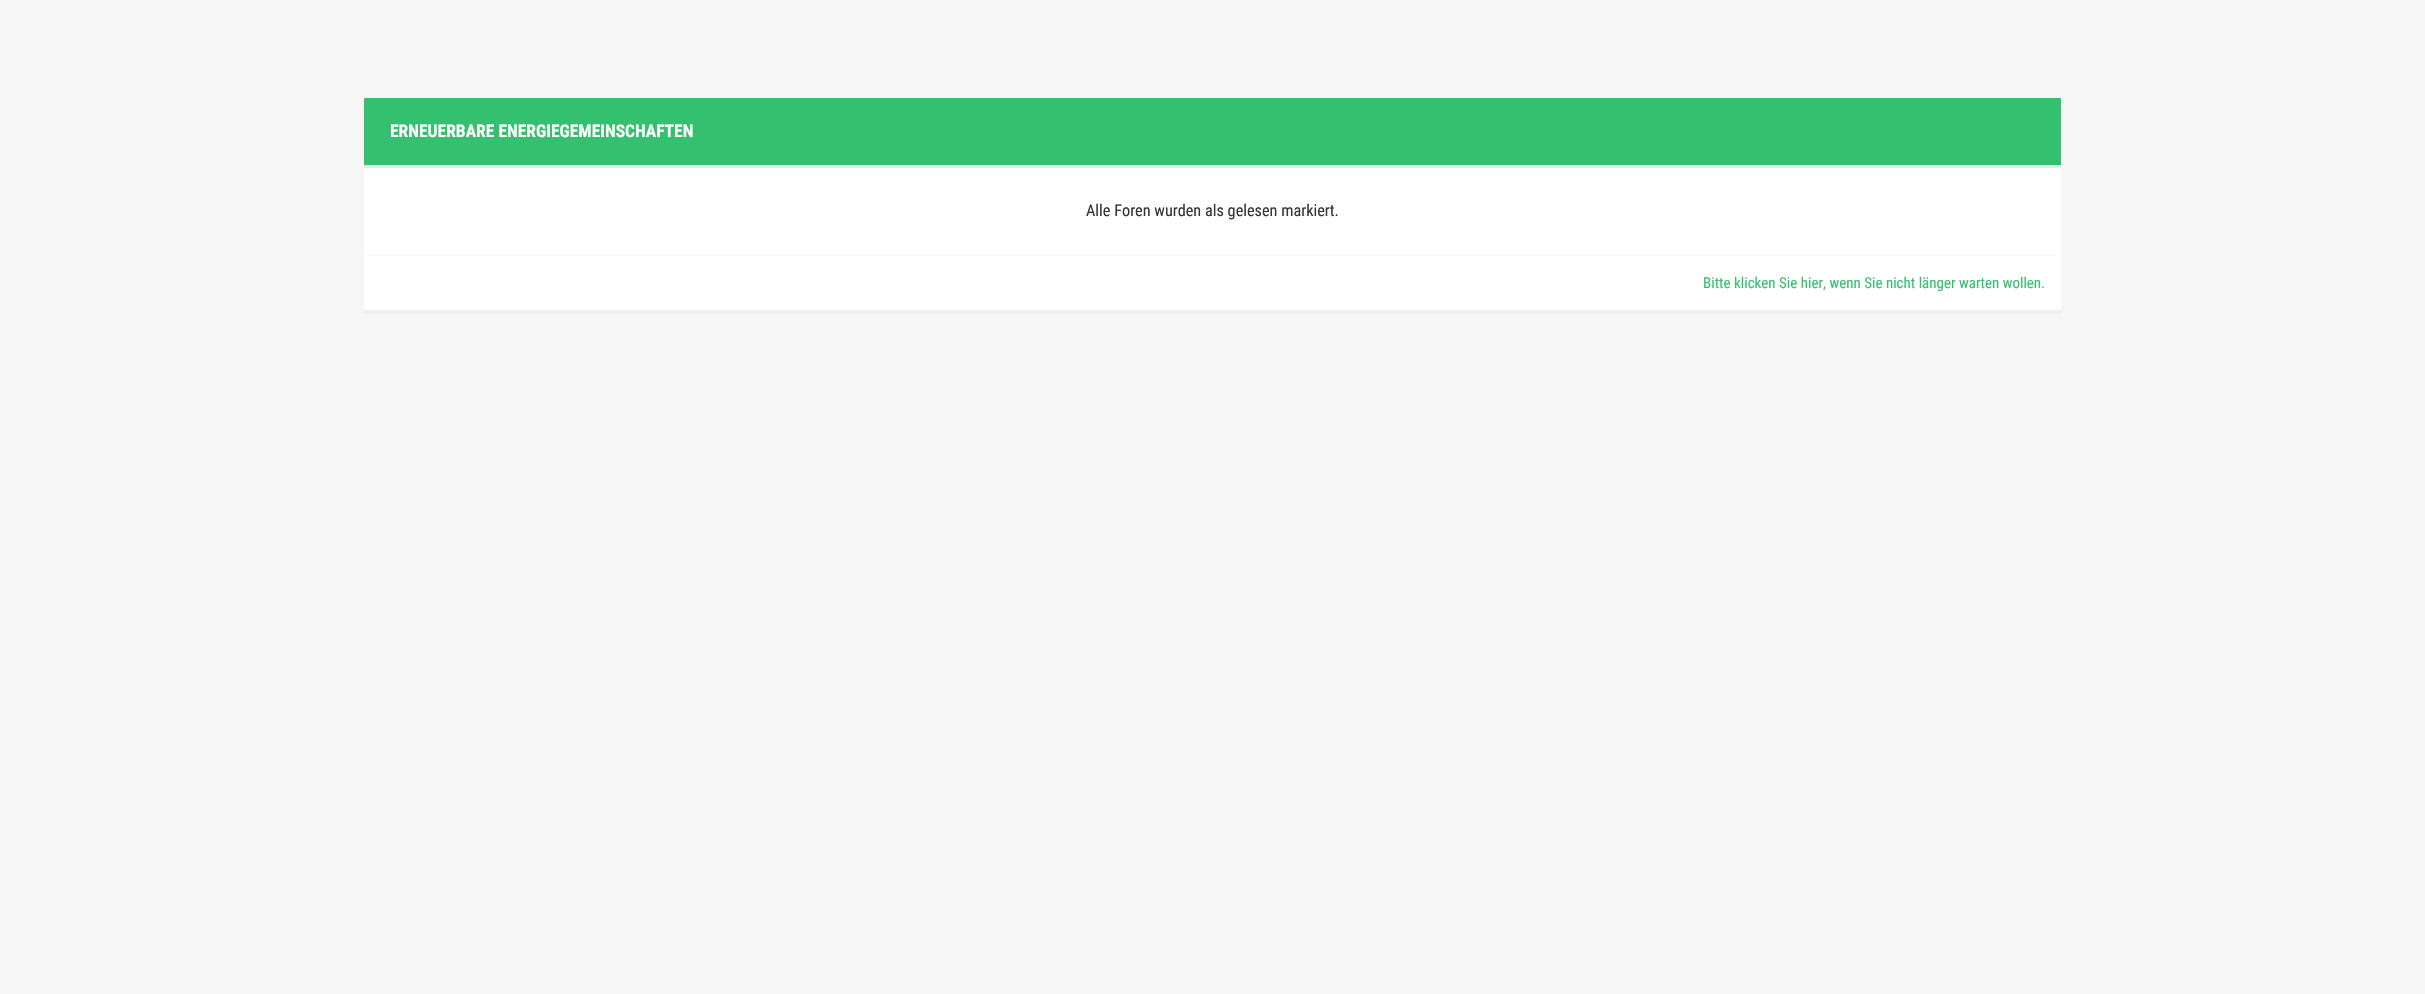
void draw(SkCanvas* canvas) {
    SkPaint paint;
    paint.setAntiAlias(true);
    auto face = [&](const char* family, int weight, float size, bool italic = false) {
        SkFontStyle style(weight, SkFontStyle::kNormal_Width,
            italic ? SkFontStyle::kItalic_Slant : SkFontStyle::kUpright_Slant);
        SkFont result(fontMgr->matchFamilyStyle(family, style), size);
        result.setSubpixel(true);
        return result;
    };
    auto write = [&](const char* s, float x, float y, const SkFont& font, SkColor color) {
        SkPaint ink(SkColor4f::FromColor(color));
        ink.setAntiAlias(true);
        canvas->drawString(s, x, y, font, ink);
    };
    auto block = [&](float x, float y, float w, float h, SkColor color) {
        SkPaint ink(SkColor4f::FromColor(color));
        ink.setAntiAlias(true);
        canvas->drawRect(SkRect::MakeXYWH(x, y, w, h), ink);
    };
    canvas->clear(SkColorSetRGB(246, 246, 246));
    block(364, 98, 1697, 212, SK_ColorWHITE);
    block(364, 310, 1697, 4, SkColorSetRGB(239, 239, 239));
    paint.setColor(SkColorSetRGB(53, 192, 112));
    canvas->drawPath(SkPathBuilder().moveTo(365, 98).lineTo(2060, 98).cubicTo(2060.5f, 98, 2061, 98.5f, 2061, 99).lineTo(2061, 168).lineTo(364, 168).lineTo(364, 99).cubicTo(364, 98.5f, 364.5f, 98, 365, 98).close().detach(), paint);
    block(364, 165, 1697, 3, SkColorSetRGB(233, 233, 233));
    auto kFont1 = face("Roboto Condensed", 700, 17.5f);
    write("ERNEUERBARE ENERGIEGEMEINSCHAFTEN", 390, 137, kFont1, SK_ColorWHITE);
    block(364, 255, 1697, 1, SkColorSetRGB(249, 249, 249));
    auto kFont2 = face("Roboto Condensed", 400, 16.25f);
    write("Alle Foren wurden als gelesen markiert.", 1086, 216, kFont2, SkColorSetRGB(51, 51, 51));
    auto kFont3 = face("Roboto Condensed", 400, 15);
    write("Bitte klicken Sie hier, wenn Sie nicht länger warten wollen.", 1703, 288, kFont3, SkColorSetRGB(53, 192, 112));
}
